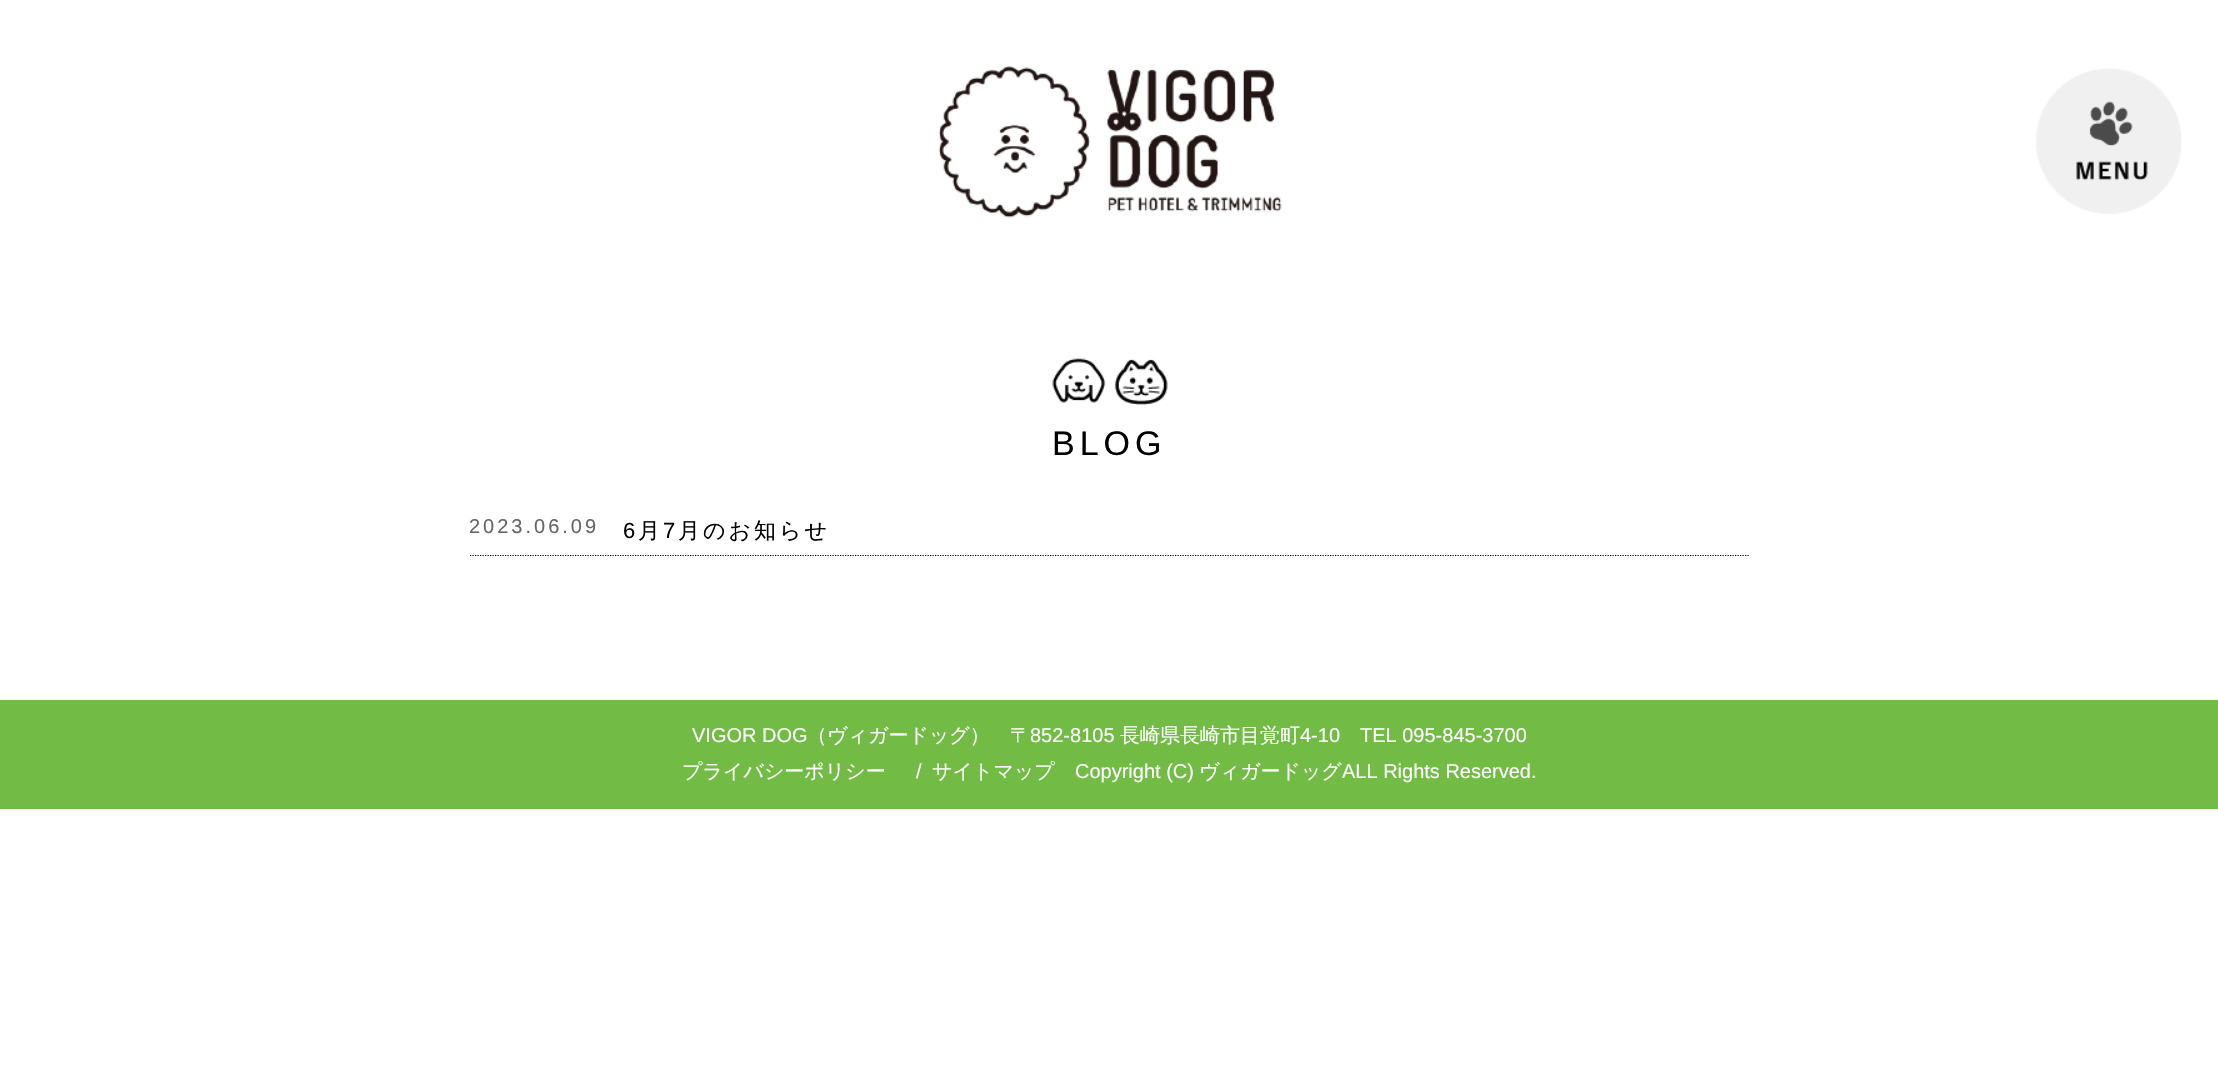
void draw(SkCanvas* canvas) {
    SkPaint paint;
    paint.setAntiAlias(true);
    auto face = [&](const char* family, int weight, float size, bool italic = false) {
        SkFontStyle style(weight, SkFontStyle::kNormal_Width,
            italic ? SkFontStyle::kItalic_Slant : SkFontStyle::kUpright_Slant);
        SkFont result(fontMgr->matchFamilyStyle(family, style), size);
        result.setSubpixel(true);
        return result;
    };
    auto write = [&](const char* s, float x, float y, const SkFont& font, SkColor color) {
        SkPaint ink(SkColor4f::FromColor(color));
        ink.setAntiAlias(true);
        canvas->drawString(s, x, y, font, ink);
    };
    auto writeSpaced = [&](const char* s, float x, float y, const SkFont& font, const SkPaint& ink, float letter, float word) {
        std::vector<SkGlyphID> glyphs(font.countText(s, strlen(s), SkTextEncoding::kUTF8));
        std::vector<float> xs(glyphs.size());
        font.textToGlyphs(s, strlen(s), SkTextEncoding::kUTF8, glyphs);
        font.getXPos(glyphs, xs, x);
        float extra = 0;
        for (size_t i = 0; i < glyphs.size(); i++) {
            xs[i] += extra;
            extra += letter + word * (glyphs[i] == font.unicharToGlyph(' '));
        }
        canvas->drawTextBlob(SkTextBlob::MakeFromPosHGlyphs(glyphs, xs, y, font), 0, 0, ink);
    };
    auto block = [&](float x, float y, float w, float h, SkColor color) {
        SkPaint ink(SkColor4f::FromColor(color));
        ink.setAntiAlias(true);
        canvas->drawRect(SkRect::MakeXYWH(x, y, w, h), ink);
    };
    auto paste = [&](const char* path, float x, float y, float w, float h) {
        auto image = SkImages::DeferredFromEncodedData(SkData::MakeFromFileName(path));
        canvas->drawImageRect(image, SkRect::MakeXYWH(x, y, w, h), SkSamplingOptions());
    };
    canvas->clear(SK_ColorWHITE);
    paste("pic1.png", 938, 66, 344, 152);
    paste("pic2.png", 2036, 68, 146, 146);
    paste("pic3.png", 1052, 358, 116, 47);
    auto kFont1 = face("Liberation Sans", 400, 34);
    paint.setColor(SK_ColorBLACK);
    writeSpaced("BLOG", 1052, 455, kFont1, paint, 5, 0);
    paint.setStyle(SkPaint::kStroke_Style);
    paint.setStrokeWidth(1.2f);
    paint.setPathEffect(SkDashPathEffect::Make({{1.25f, 1.25f}}, 0));
    canvas->drawPath(SkPathBuilder().moveTo(470, 555.5f).lineTo(622.5f, 555.5f).detach(), paint);
    paint.setPathEffect(nullptr);
    auto kFont2 = face("Liberation Sans", 400, 20);
    paint.setStyle(SkPaint::kFill_Style);
    paint.setColor(SkColorSetRGB(102, 102, 102));
    writeSpaced("2023.06.09", 469, 533, kFont2, paint, 3, 0);
    paint.setStyle(SkPaint::kStroke_Style);
    paint.setColor(SK_ColorBLACK);
    paint.setPathEffect(SkDashPathEffect::Make({{1.25f, 1.25f}}, 0));
    canvas->drawPath(SkPathBuilder().moveTo(622.5f, 555.5f).lineTo(1750, 555.5f).detach(), paint);
    paint.setPathEffect(nullptr);
    auto kFont3 = face("Liberation Sans", 400, 22);
    paint.setStyle(SkPaint::kFill_Style);
    writeSpaced("6", 623, 538, kFont3, paint, 3, 0);
    auto kFont4 = face("WenQuanYi Zen Hei", 500, 22);
    writeSpaced("月", 638, 538, kFont4, paint, 3, 0);
    writeSpaced("7", 663, 538, kFont3, paint, 3, 0);
    writeSpaced("月のお知らせ", 678, 538, kFont4, paint, 3, 0);
    block(0, 700, 2218, 109, SkColorSetRGB(114, 188, 70));
    write("VIGOR DOG", 692, 742, kFont2, SK_ColorWHITE);
    auto kFont5 = face("WenQuanYi Zen Hei", 500, 20);
    write("（ヴィガードッグ）", 807, 742, kFont5, SK_ColorWHITE);
    write("〒", 1010, 742, kFont5, SK_ColorWHITE);
    write("852-8105", 1030, 742, kFont2, SK_ColorWHITE);
    write("長崎県長崎市目覚町", 1120, 742, kFont5, SK_ColorWHITE);
    write("4-10", 1300, 742, kFont2, SK_ColorWHITE);
    write("TEL 095-845-3700", 1360, 742, kFont2, SK_ColorWHITE);
    write("プライバシーポリシー", 682, 778, kFont5, SK_ColorWHITE);
    write("/", 916, 778, kFont2, SK_ColorWHITE);
    write("サイトマップ", 932, 778, kFont5, SK_ColorWHITE);
    write("Copyright (C)", 1075, 778, kFont2, SK_ColorWHITE);
    write("ヴィガードッグ", 1199, 778, kFont5, SK_ColorWHITE);
    write("ALL Rights Reserved.", 1342, 778, kFont2, SK_ColorWHITE);
}
